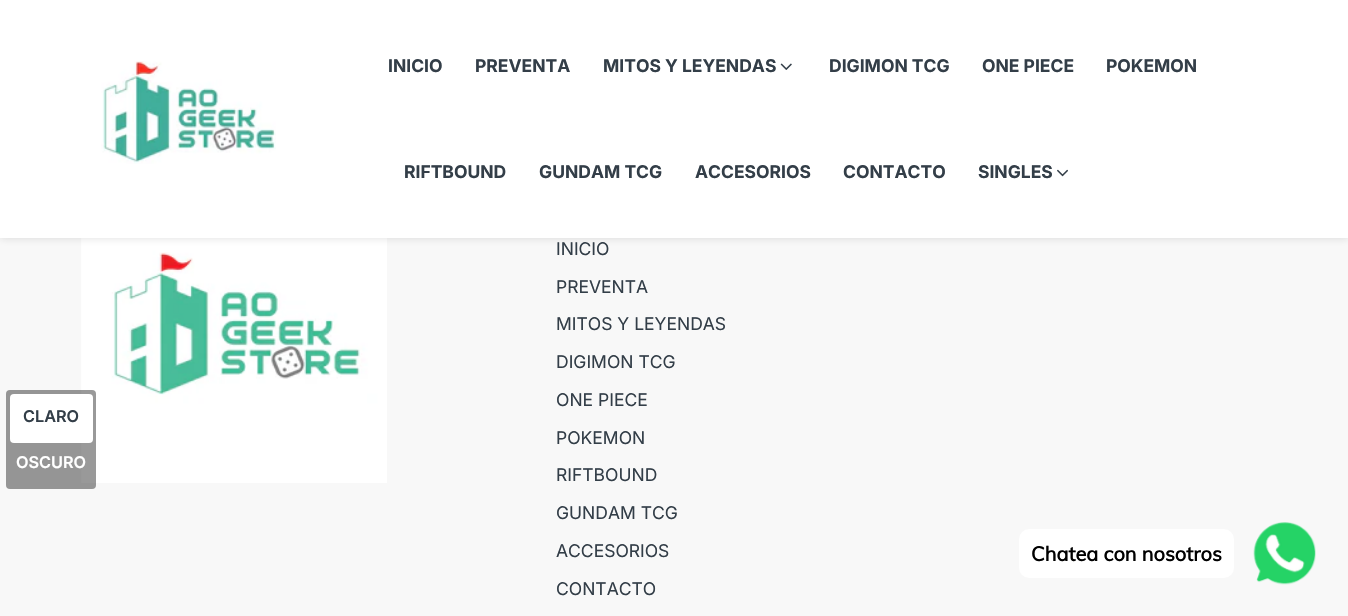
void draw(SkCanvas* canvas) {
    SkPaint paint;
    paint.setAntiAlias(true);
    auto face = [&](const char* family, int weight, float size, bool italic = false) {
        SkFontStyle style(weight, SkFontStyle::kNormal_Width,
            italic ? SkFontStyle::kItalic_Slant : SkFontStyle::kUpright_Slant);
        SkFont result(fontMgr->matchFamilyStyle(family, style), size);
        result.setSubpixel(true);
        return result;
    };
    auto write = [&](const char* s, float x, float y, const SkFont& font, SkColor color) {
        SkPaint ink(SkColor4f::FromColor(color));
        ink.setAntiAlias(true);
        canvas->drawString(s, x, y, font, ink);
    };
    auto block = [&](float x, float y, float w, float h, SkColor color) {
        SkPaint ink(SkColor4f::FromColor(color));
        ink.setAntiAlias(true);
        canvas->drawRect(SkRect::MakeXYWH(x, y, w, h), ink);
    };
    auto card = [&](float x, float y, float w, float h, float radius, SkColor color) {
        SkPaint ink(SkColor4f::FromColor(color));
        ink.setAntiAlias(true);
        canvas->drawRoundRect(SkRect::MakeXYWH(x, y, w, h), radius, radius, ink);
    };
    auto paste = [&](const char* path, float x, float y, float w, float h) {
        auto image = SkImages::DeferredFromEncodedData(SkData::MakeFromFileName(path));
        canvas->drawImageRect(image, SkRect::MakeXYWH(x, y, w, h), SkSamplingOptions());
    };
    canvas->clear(SkColorSetRGB(248, 248, 248));
    paste("pic4.png", 81, 238, 306, 245);
    card(6, 390, 90, 99, 4, SkColorSetARGB(102, 0, 0, 0));
    card(10, 394, 83, 49, 4, SK_ColorWHITE);
    auto kFont1 = face("Inter", 600, 16.25f);
    write("CLARO", 23, 422, kFont1, SkColorSetRGB(51, 62, 72));
    write("OSCURO", 16, 468, kFont1, SK_ColorWHITE);
    paint.setColor(SkColorSetARGB(38, 32, 33, 36));
    paint.setMaskFilter(SkMaskFilter::MakeBlur(kNormal_SkBlurStyle, 4));
    canvas->drawRect(SkRect::MakeXYWH(0, 0, 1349, 238), paint);
    paint.setMaskFilter(nullptr);
    block(0, 0, 1348, 238, SK_ColorWHITE);
    paste("pic1.png", 101, 61, 175, 103);
    auto kFont2 = face("Inter", 700, 17.5f);
    write("INICIO", 388, 72, kFont2, SkColorSetRGB(51, 62, 72));
    write("PREVENTA", 475, 72, kFont2, SkColorSetRGB(51, 62, 72));
    write("MITOS Y LEYENDAS", 603, 72, kFont2, SkColorSetRGB(51, 62, 72));
    paste("pic2.png", 780, 63, 12, 7);
    write("DIGIMON TCG", 829, 72, kFont2, SkColorSetRGB(51, 62, 72));
    write("ONE PIECE", 982, 72, kFont2, SkColorSetRGB(51, 62, 72));
    write("POKEMON", 1106, 72, kFont2, SkColorSetRGB(51, 62, 72));
    write("RIFTBOUND", 404, 178, kFont2, SkColorSetRGB(51, 62, 72));
    write("GUNDAM TCG", 539, 178, kFont2, SkColorSetRGB(51, 62, 72));
    write("ACCESORIOS", 695, 178, kFont2, SkColorSetRGB(51, 62, 72));
    write("CONTACTO", 843, 178, kFont2, SkColorSetRGB(51, 62, 72));
    write("SINGLES", 978, 178, kFont2, SkColorSetRGB(51, 62, 72));
    paste("pic3.png", 1057, 169, 11, 8);
    auto kFont3 = face("Inter", 400, 17.5f);
    write("INICIO", 556, 255, kFont3, SkColorSetRGB(51, 62, 72));
    write("PREVENTA", 556, 293, kFont3, SkColorSetRGB(51, 62, 72));
    write("MITOS Y LEYENDAS", 556, 330, kFont3, SkColorSetRGB(51, 62, 72));
    write("DIGIMON TCG", 556, 368, kFont3, SkColorSetRGB(51, 62, 72));
    write("ONE PIECE", 556, 406, kFont3, SkColorSetRGB(51, 62, 72));
    write("POKEMON", 556, 444, kFont3, SkColorSetRGB(51, 62, 72));
    write("RIFTBOUND", 556, 481, kFont3, SkColorSetRGB(51, 62, 72));
    write("GUNDAM TCG", 556, 519, kFont3, SkColorSetRGB(51, 62, 72));
    write("ACCESORIOS", 556, 557, kFont3, SkColorSetRGB(51, 62, 72));
    write("CONTACTO", 556, 595, kFont3, SkColorSetRGB(51, 62, 72));
    paste("pic5.png", 1253, 522, 63, 63);
    card(1019, 529, 215, 49, 10, SK_ColorWHITE);
    auto kFont4 = face("Muli", 700, 20);
    write("Chatea con nosotros", 1031, 561, kFont4, SK_ColorBLACK);
}
